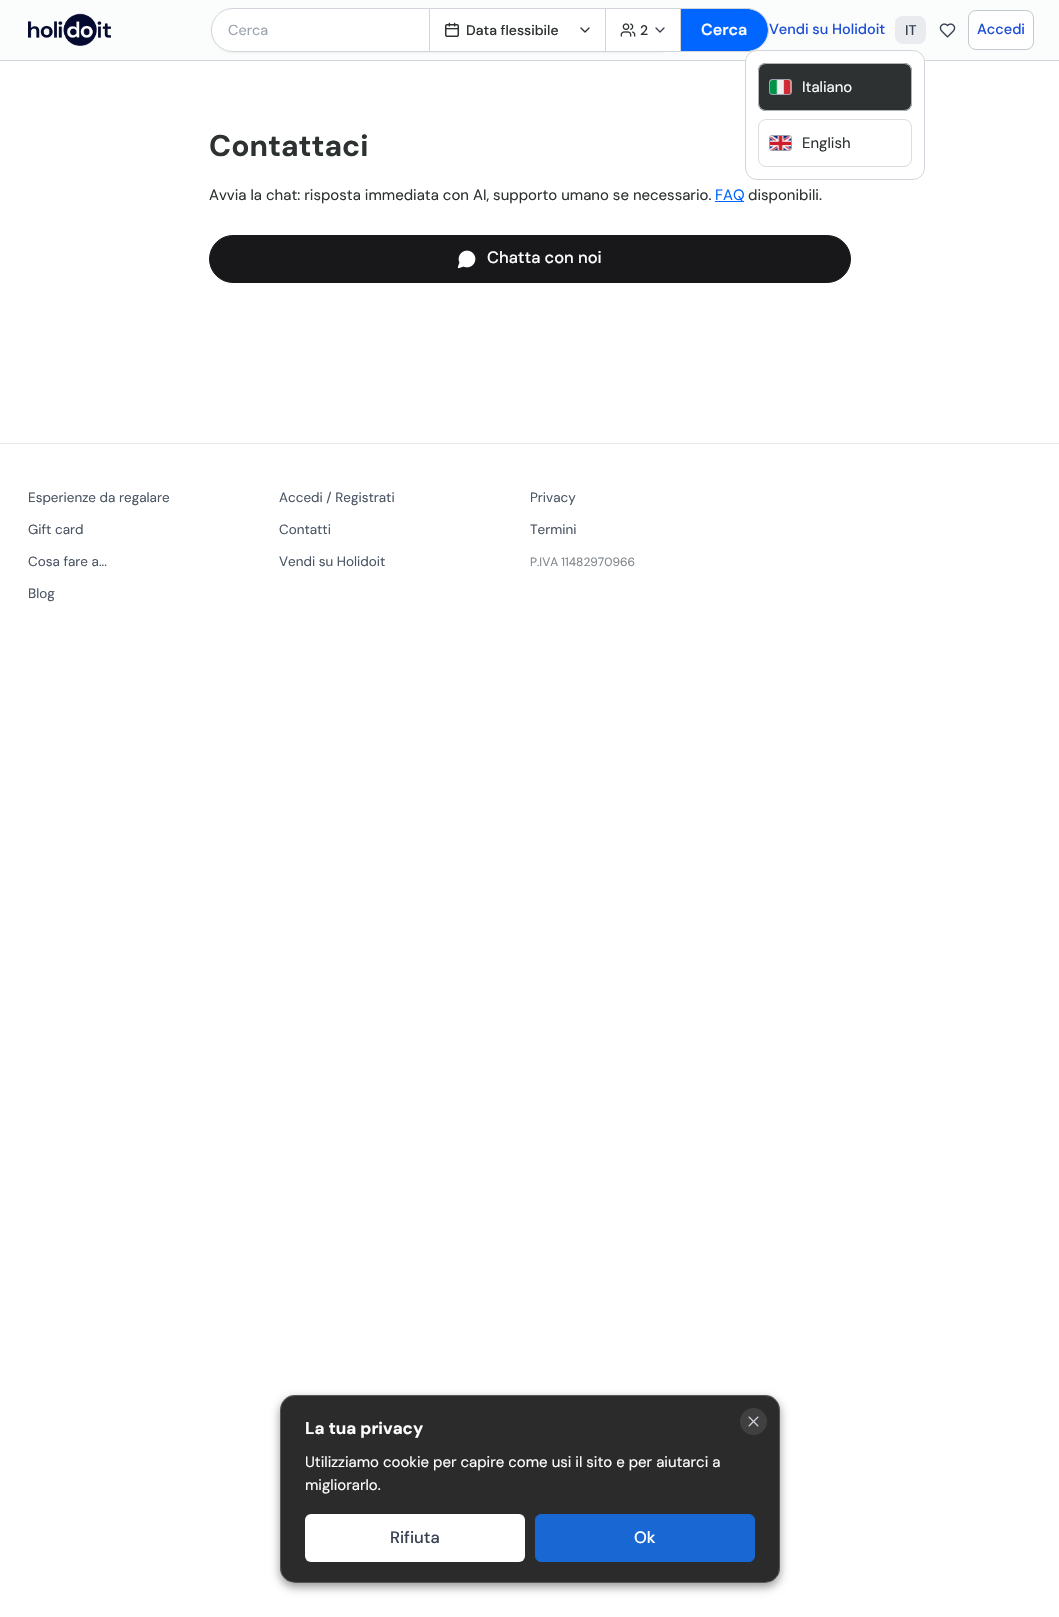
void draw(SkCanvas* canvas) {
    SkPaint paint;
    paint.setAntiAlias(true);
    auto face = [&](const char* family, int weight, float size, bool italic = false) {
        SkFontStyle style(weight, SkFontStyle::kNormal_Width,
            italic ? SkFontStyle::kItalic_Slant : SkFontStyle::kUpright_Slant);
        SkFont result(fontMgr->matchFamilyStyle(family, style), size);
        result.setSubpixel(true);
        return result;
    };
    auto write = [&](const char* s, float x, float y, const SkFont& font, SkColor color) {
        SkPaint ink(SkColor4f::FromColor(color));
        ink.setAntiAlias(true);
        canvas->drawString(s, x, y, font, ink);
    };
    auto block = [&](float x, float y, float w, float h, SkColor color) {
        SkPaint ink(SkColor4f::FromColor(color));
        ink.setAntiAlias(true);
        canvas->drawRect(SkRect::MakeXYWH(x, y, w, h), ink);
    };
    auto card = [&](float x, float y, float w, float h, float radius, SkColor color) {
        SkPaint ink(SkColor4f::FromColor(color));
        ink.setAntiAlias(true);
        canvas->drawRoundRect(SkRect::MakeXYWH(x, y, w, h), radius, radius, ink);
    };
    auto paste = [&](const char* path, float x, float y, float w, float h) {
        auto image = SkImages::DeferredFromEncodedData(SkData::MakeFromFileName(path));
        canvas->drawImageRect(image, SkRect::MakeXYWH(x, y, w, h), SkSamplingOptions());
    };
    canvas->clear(SK_ColorWHITE);
    block(0, 0, 1059, 60, SkColorSetRGB(251, 252, 252));
    block(0, 60, 1059, 1, SkColorSetRGB(209, 213, 219));
    paste("pic1.png", 28, 13, 84, 33);
    paint.setColor(SkColorSetRGB(0, 102, 255));
    canvas->drawPath(SkPathBuilder().moveTo(681, 9).lineTo(747, 9).cubicTo(758.5f, 9, 768, 18.5f, 768, 30).cubicTo(768, 41.5f, 758.5f, 51, 747, 51).lineTo(681, 51).close().detach(), paint);
    paint.setColor(SkColorSetRGB(209, 213, 219));
    canvas->drawPath(SkPathBuilder(SkPathFillType::kEvenOdd).moveTo(681, 8).lineTo(747, 8).cubicTo(759, 8, 769, 18, 769, 30).cubicTo(769, 42, 759, 52, 747, 52).lineTo(681, 52).close().moveTo(681, 9).lineTo(747, 9).cubicTo(759, 9, 768, 18, 768, 30).cubicTo(768, 42, 759, 51, 747, 51).lineTo(681, 51).close().detach(), paint);
    paint.setColor(SkColorSetARGB(13, 0, 0, 0));
    paint.setMaskFilter(SkMaskFilter::MakeBlur(kNormal_SkBlurStyle, 1));
    canvas->drawRoundRect(SkRect::MakeXYWH(211, 9, 470, 44), 22, 22, paint);
    paint.setMaskFilter(nullptr);
    paint.setColor(SK_ColorWHITE);
    canvas->drawPath(SkPathBuilder().moveTo(233, 8).lineTo(681, 8).lineTo(681, 52).lineTo(233, 52).cubicTo(221, 52, 211, 42, 211, 30).cubicTo(211, 18, 221, 8, 233, 8).close().detach(), paint);
    paint.setStyle(SkPaint::kStroke_Style);
    paint.setStrokeWidth(1);
    paint.setColor(SkColorSetRGB(209, 213, 219));
    canvas->drawPath(SkPathBuilder().moveTo(233, 8.5f).lineTo(429.5f, 8.5f).lineTo(429.5f, 51.5f).lineTo(233, 51.5f).cubicTo(221, 51.5f, 211.5f, 42, 211.5f, 30).cubicTo(211.5f, 18, 221, 8.5f, 233, 8.5f).close().detach(), paint);
    auto kFont1 = face("DM Sans", 400, 14.5f);
    write("Cerca", 228, 35, kFont1, SkColorSetRGB(156, 163, 175));
    block(430, 8, 251, 1, SkColorSetRGB(209, 213, 219));
    block(605, 8, 1, 44, SkColorSetRGB(209, 213, 219));
    block(430, 51, 176, 1, SkColorSetRGB(209, 213, 219));
    paste("pic2.png", 445, 22, 14, 15);
    auto kFont2 = face("DM Sans", 500, 14);
    write("Data flessibile", 466, 35, kFont2, SkColorSetRGB(45, 49, 49));
    paint.setStrokeWidth(1.3f);
    paint.setStrokeCap(SkPaint::kRound_Cap);
    paint.setStrokeJoin(SkPaint::kRound_Join);
    paint.setColor(SkColorSetRGB(45, 49, 49));
    canvas->drawPath(SkPathBuilder().moveTo(581, 28).lineTo(585, 32).lineTo(589, 28).detach(), paint);
    block(680, 8, 1, 44, SkColorSetRGB(209, 213, 219));
    block(606, 51, 75, 1, SkColorSetRGB(209, 213, 219));
    paste("pic3.png", 620, 23, 16, 14);
    write("2", 640, 35, kFont2, SkColorSetRGB(45, 49, 49));
    paint.setColor(SkColorSetRGB(55, 60, 70));
    canvas->drawPath(SkPathBuilder().moveTo(656, 28).lineTo(660, 32).lineTo(664, 28).detach(), paint);
    auto kFont3 = face("DM Sans", 600, 16);
    write("Cerca", 701, 35, kFont3, SK_ColorWHITE);
    auto kFont4 = face("DM Sans", 500, 14.5f);
    write("Vendi su Holidoit", 769, 34, kFont4, SkColorSetRGB(29, 78, 216));
    card(895, 16, 31, 28, 8, SkColorSetRGB(233, 235, 238));
    write("IT", 905, 35, kFont2, SkColorSetRGB(55, 65, 81));
    paste("pic4.png", 939, 23, 17, 15);
    paint.setStyle(SkPaint::kFill_Style);
    paint.setColor(SK_ColorWHITE);
    canvas->drawRoundRect(SkRect::MakeXYWH(968.5f, 10.5f, 65, 39), 7.5f, 7.5f, paint);
    paint.setStyle(SkPaint::kStroke_Style);
    paint.setStrokeWidth(1);
    paint.setStrokeCap(SkPaint::kButt_Cap);
    paint.setStrokeJoin(SkPaint::kMiter_Join);
    paint.setColor(SkColorSetRGB(196, 200, 207));
    canvas->drawRoundRect(SkRect::MakeXYWH(968.5f, 10.5f, 65, 39), 7.5f, 7.5f, paint);
    write("Accedi", 977, 34, kFont4, SkColorSetRGB(29, 78, 216));
    auto kFont5 = face("DM Sans", 700, 30);
    write("Contattaci", 209, 156, kFont5, SkColorSetRGB(45, 49, 49));
    auto kFont6 = face("DM Sans", 400, 15);
    write("Avvia la chat: risposta immediata con AI, supporto umano se necessario.", 209, 200, kFont6, SkColorSetRGB(45, 49, 49));
    block(715, 201, 29, 1, SkColorSetRGB(0, 102, 255));
    write("FAQ", 715, 200, kFont6, SkColorSetRGB(0, 102, 255));
    write("disponibili.", 748, 200, kFont6, SkColorSetRGB(45, 49, 49));
    paint.setStyle(SkPaint::kFill_Style);
    paint.setColor(SkColorSetRGB(24, 24, 27));
    canvas->drawRoundRect(SkRect::MakeXYWH(209.5f, 235.5f, 641, 47), 23.5f, 23.5f, paint);
    paint.setStyle(SkPaint::kStroke_Style);
    canvas->drawRoundRect(SkRect::MakeXYWH(209.5f, 235.5f, 641, 47), 23.5f, 23.5f, paint);
    paste("pic5.png", 457, 250, 19, 19);
    auto kFont7 = face("DM Sans", 500, 16.5f);
    write("Chatta con noi", 487, 263, kFont7, SK_ColorWHITE);
    block(0, 443, 1059, 1, SkColorSetRGB(229, 231, 235));
    auto kFont8 = face("DM Sans", 400, 13.5f);
    write("Esperienze da regalare", 28, 502, kFont8, SkColorSetRGB(75, 85, 99));
    write("Gift card", 28, 534, kFont8, SkColorSetRGB(75, 85, 99));
    write("Cosa fare a...", 28, 566, kFont8, SkColorSetRGB(75, 85, 99));
    write("Blog", 28, 598, kFont8, SkColorSetRGB(75, 85, 99));
    write("Accedi / Registrati", 279, 502, kFont8, SkColorSetRGB(75, 85, 99));
    write("Contatti", 279, 534, kFont8, SkColorSetRGB(75, 85, 99));
    write("Vendi su Holidoit", 279, 566, kFont8, SkColorSetRGB(75, 85, 99));
    write("Privacy", 530, 502, kFont8, SkColorSetRGB(75, 85, 99));
    write("Termini", 530, 534, kFont8, SkColorSetRGB(75, 85, 99));
    auto kFont9 = face("DM Sans", 400, 12);
    write("P.IVA 11482970966", 530, 566, kFont9, SkColorSetRGB(128, 134, 139));
    canvas->save();
    canvas->clipPath(SkPathBuilder(SkPathFillType::kEvenOdd).moveTo(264, 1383).lineTo(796, 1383).lineTo(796, 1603).lineTo(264, 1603).close().moveTo(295, 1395).lineTo(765, 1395).cubicTo(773.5f, 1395, 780, 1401.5f, 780, 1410).lineTo(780, 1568).cubicTo(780, 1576.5f, 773.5f, 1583, 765, 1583).lineTo(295, 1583).cubicTo(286.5f, 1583, 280, 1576.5f, 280, 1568).lineTo(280, 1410).cubicTo(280, 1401.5f, 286.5f, 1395, 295, 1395).close().detach(), true);
    paint.setStyle(SkPaint::kFill_Style);
    paint.setColor(SkColorSetARGB(102, 0, 0, 0));
    paint.setMaskFilter(SkMaskFilter::MakeBlur(kNormal_SkBlurStyle, 5));
    canvas->drawRoundRect(SkRect::MakeXYWH(280, 1399, 500, 188), 15, 15, paint);
    paint.setMaskFilter(nullptr);
    canvas->restore();
    card(280, 1395, 500, 188, 15, SkColorSetARGB(230, 20, 20, 20));
    paint.setStyle(SkPaint::kStroke_Style);
    paint.setColor(SkColorSetARGB(51, 255, 255, 255));
    canvas->drawRoundRect(SkRect::MakeXYWH(280.5f, 1395.5f, 499, 187), 14.5f, 14.5f, paint);
    auto kFont10 = face("DM Sans", 700, 17);
    write("La tua privacy", 305, 1434, kFont10, SK_ColorWHITE);
    write("Utilizziamo cookie per capire come usi il sito e per aiutarci a", 305, 1467, kFont6, SK_ColorWHITE);
    write("migliorarlo.", 305, 1490, kFont6, SK_ColorWHITE);
    paint.setStyle(SkPaint::kFill_Style);
    paint.setColor(SkColorSetRGB(64, 64, 64));
    canvas->drawCircle(753.5f, 1421.5f, 13.5f, paint);
    paste("pic6.png", 748, 1416, 11, 11);
    card(305, 1514, 220, 48, 6, SK_ColorWHITE);
    write("Rifiuta", 390, 1543, kFont7, SkColorSetRGB(55, 65, 81));
    paint.setColor(SkColorSetRGB(25, 103, 210));
    canvas->drawRoundRect(SkRect::MakeXYWH(535.5f, 1514.5f, 219, 47), 5.5f, 5.5f, paint);
    paint.setStyle(SkPaint::kStroke_Style);
    canvas->drawRoundRect(SkRect::MakeXYWH(535.5f, 1514.5f, 219, 47), 5.5f, 5.5f, paint);
    write("Ok", 634, 1543, kFont7, SK_ColorWHITE);
    paint.setStyle(SkPaint::kFill_Style);
    paint.setColor(SK_ColorWHITE);
    canvas->drawRoundRect(SkRect::MakeXYWH(745.5f, 50.5f, 179, 129), 11.5f, 11.5f, paint);
    paint.setStyle(SkPaint::kStroke_Style);
    paint.setColor(SkColorSetRGB(209, 213, 219));
    canvas->drawRoundRect(SkRect::MakeXYWH(745.5f, 50.5f, 179, 129), 11.5f, 11.5f, paint);
    card(758, 63, 154, 48, 8, SkColorSetRGB(45, 49, 49));
    paint.setColor(SkColorSetARGB(204, 209, 213, 219));
    canvas->drawRoundRect(SkRect::MakeXYWH(758.5f, 63.5f, 153, 47), 7.5f, 7.5f, paint);
    paint.setColor(SkColorSetRGB(156, 163, 175));
    canvas->drawRoundRect(SkRect::MakeXYWH(769.5f, 79.5f, 22, 15), 2.5f, 2.5f, paint);
    card(770, 80, 21, 14, 2, SK_ColorWHITE);
    paste("pic7.png", 770, 80, 21, 14);
    write("Italiano", 802, 92, kFont6, SK_ColorWHITE);
    paint.setColor(SkColorSetRGB(218, 221, 226));
    canvas->drawRoundRect(SkRect::MakeXYWH(758.5f, 119.5f, 153, 47), 7.5f, 7.5f, paint);
    paint.setColor(SkColorSetRGB(156, 163, 175));
    canvas->drawRoundRect(SkRect::MakeXYWH(769.5f, 135.5f, 22, 15), 2.5f, 2.5f, paint);
    card(770, 136, 21, 14, 2, SK_ColorWHITE);
    paste("pic8.png", 770, 136, 21, 14);
    write("English", 802, 148, kFont6, SkColorSetRGB(45, 49, 49));
}
